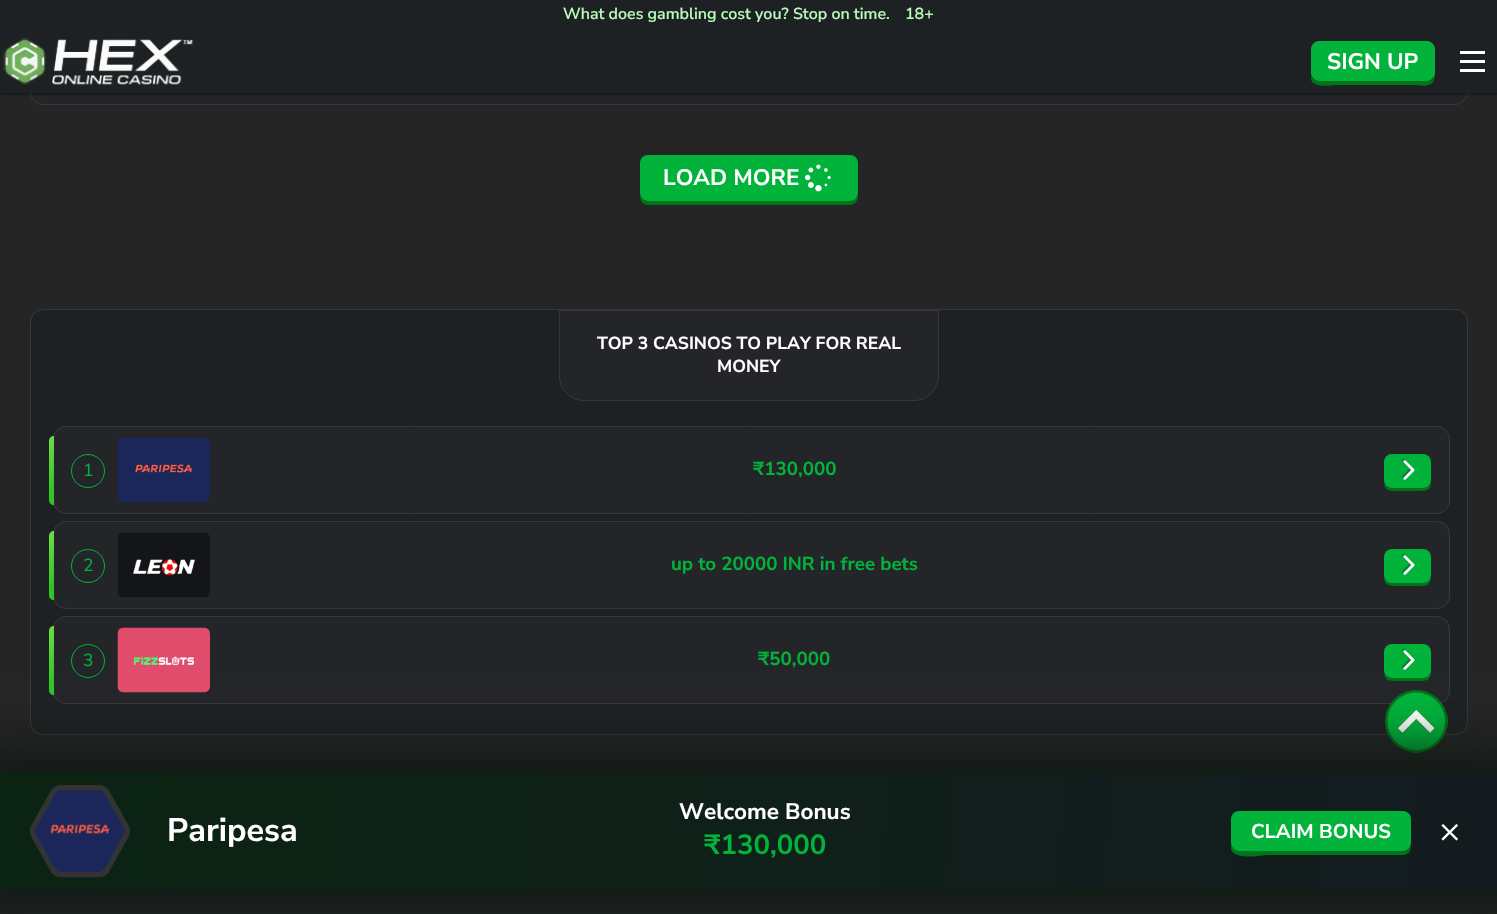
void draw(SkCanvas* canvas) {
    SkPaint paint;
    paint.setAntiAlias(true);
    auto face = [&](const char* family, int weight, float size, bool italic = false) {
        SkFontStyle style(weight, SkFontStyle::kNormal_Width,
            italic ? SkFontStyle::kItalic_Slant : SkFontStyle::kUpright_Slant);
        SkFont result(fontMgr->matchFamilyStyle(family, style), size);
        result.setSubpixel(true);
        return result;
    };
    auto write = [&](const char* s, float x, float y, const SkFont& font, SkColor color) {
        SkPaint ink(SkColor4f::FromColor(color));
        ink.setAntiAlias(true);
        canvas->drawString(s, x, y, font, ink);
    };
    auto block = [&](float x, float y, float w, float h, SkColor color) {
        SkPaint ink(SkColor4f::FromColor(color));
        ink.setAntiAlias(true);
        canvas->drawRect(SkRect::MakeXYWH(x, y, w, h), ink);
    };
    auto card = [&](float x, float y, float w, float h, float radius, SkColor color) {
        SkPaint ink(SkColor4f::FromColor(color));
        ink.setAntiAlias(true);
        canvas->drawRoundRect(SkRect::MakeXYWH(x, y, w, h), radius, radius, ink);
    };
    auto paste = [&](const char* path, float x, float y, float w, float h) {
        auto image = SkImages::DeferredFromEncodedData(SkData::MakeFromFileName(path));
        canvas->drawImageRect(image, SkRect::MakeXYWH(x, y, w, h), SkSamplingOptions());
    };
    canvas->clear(SkColorSetRGB(37, 37, 37));
    paint.setColor(SkColorSetRGB(36, 37, 40));
    canvas->drawRoundRect(SkRect::MakeXYWH(30.5f, -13.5f, 1437, 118), 12.5f, 12.5f, paint);
    paint.setStyle(SkPaint::kStroke_Style);
    paint.setStrokeWidth(1);
    paint.setColor(SkColorSetRGB(56, 56, 59));
    canvas->drawRoundRect(SkRect::MakeXYWH(30.5f, -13.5f, 1437, 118), 12.5f, 12.5f, paint);
    paint.setStyle(SkPaint::kFill_Style);
    paint.setColor(SkColorSetARGB(77, 0, 0, 0));
    paint.setMaskFilter(SkMaskFilter::MakeBlur(kNormal_SkBlurStyle, 1));
    canvas->drawRect(SkRect::MakeXYWH(0, 33, 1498, 62), paint);
    paint.setMaskFilter(nullptr);
    block(0, 0, 1497, 93, SkColorSetRGB(30, 33, 35));
    auto kFont1 = face("Nunito Sans", 600, 16);
    write("What does gambling cost you? Stop on time.", 563, 19, kFont1, SkColorSetRGB(187, 251, 188));
    write("18+", 905, 19, kFont1, SkColorSetRGB(187, 251, 188));
    paste("pic1.png", 3, 38, 191, 47);
    paint.setColor(SkColorSetRGB(0, 116, 25));
    canvas->drawPath(SkPathBuilder().moveTo(1311, 51).lineTo(1311, 79).cubicTo(1313, 89, 1332, 85, 1337, 85).lineTo(1409, 85).cubicTo(1422, 85, 1435, 90, 1435, 74).cubicTo(1435, 78, 1432, 81, 1428, 81).lineTo(1319, 81).cubicTo(1315, 81, 1311, 78, 1311, 74).close().detach(), paint);
    paint.setColor(SkColorSetRGB(1, 179, 59));
    canvas->drawRoundRect(SkRect::MakeXYWH(1311.5f, 41.5f, 123, 39), 7.5f, 7.5f, paint);
    paint.setStyle(SkPaint::kStroke_Style);
    canvas->drawRoundRect(SkRect::MakeXYWH(1311.5f, 41.5f, 123, 39), 7.5f, 7.5f, paint);
    auto kFont2 = face("Nunito Sans", 700, 22.5f);
    write("SIGN UP", 1327, 69, kFont2, SK_ColorWHITE);
    block(1460, 60, 25, 3, SK_ColorWHITE);
    block(1460, 51, 25, 3, SK_ColorWHITE);
    block(1460, 69, 25, 3, SK_ColorWHITE);
    paint.setStyle(SkPaint::kFill_Style);
    paint.setColor(SkColorSetRGB(0, 116, 25));
    canvas->drawPath(SkPathBuilder().moveTo(640, 194).lineTo(640, 197).cubicTo(640, 201, 644, 205, 648, 205).lineTo(850, 205).cubicTo(854, 205, 858, 201, 858, 197).lineTo(858, 167).lineTo(858, 164).lineTo(858, 194).cubicTo(858, 198, 854, 201, 850, 201).lineTo(648, 201).cubicTo(643, 201, 640, 198, 640, 194).close().detach(), paint);
    card(640, 155, 218, 46, 8, SkColorSetRGB(1, 179, 59));
    write("LOAD MORE", 663, 185, kFont2, SK_ColorWHITE);
    paste("pic2.png", 805, 164, 26, 28);
    paint.setColor(SkColorSetRGB(30, 33, 35));
    canvas->drawRoundRect(SkRect::MakeXYWH(30.5f, 309.5f, 1437, 425), 12.5f, 12.5f, paint);
    paint.setStyle(SkPaint::kStroke_Style);
    paint.setColor(SkColorSetRGB(56, 56, 59));
    canvas->drawRoundRect(SkRect::MakeXYWH(30.5f, 309.5f, 1437, 425), 12.5f, 12.5f, paint);
    paint.setStyle(SkPaint::kFill_Style);
    paint.setColor(SkColorSetRGB(36, 37, 40));
    canvas->drawPath(SkPathBuilder().moveTo(559.5f, 310.5f).lineTo(938.5f, 310.5f).lineTo(938.5f, 376).cubicTo(938.5f, 389.5f, 927.5f, 400.5f, 914, 400.5f).lineTo(584, 400.5f).cubicTo(570.5f, 400.5f, 559.5f, 389.5f, 559.5f, 376).close().detach(), paint);
    paint.setStyle(SkPaint::kStroke_Style);
    paint.setColor(SkColorSetRGB(56, 56, 59));
    canvas->drawPath(SkPathBuilder().moveTo(559.5f, 310.5f).lineTo(938.5f, 310.5f).lineTo(938.5f, 376).cubicTo(938.5f, 389.5f, 927.5f, 400.5f, 914, 400.5f).lineTo(584, 400.5f).cubicTo(570.5f, 400.5f, 559.5f, 389.5f, 559.5f, 376).close().detach(), paint);
    auto kFont3 = face("Nunito Sans", 700, 17.5f);
    write("TOP 3 CASINOS TO PLAY FOR REAL", 597, 349, kFont3, SK_ColorWHITE);
    write("MONEY", 717, 372, kFont3, SK_ColorWHITE);
    paint.setStyle(SkPaint::kFill_Style);
    paint.setColor(SkColorSetRGB(36, 37, 40));
    canvas->drawRoundRect(SkRect::MakeXYWH(53.5f, 426.5f, 1396, 87), 12.5f, 12.5f, paint);
    paint.setStyle(SkPaint::kStroke_Style);
    paint.setColor(SkColorSetRGB(56, 56, 59));
    canvas->drawRoundRect(SkRect::MakeXYWH(53.5f, 426.5f, 1396, 87), 12.5f, 12.5f, paint);
    paint.setStyle(SkPaint::kFill_Style);
    {
        const SkColor colors[] = {SkColorSetRGB(202, 255, 112), SkColorSetRGB(47, 196, 35)};
        const float stops[] = {0, 0.9f};
        const SkPoint ends[] = {{2.6f, 443}, {68, 479}};
        paint.setShader(SkGradientShader::MakeLinear(ends, colors, stops, 2, SkTileMode::kClamp));
        paint.setAlpha(255);
    }
    canvas->drawPath(SkPathBuilder().moveTo(54, 436).lineTo(54, 505).cubicTo(51, 505, 49, 503, 49, 500).lineTo(49, 441).cubicTo(49, 438, 51, 436, 54, 436).close().detach(), paint);
    paint.setStyle(SkPaint::kStroke_Style);
    paint.setShader(nullptr);
    paint.setColor(SkColorSetRGB(1, 179, 59));
    canvas->drawCircle(88, 471, 16.5f, paint);
    auto kFont4 = face("Nunito Sans", 400, 17.5f);
    write("1", 83, 476, kFont4, SkColorSetRGB(1, 179, 59));
    paste("pic3.png", 117, 437, 93, 66);
    auto kFont5 = face("Nunito Sans", 700, 18.75f);
    write("₹130,000", 753, 475, kFont5, SkColorSetRGB(1, 179, 59));
    paint.setStyle(SkPaint::kFill_Style);
    paint.setColor(SkColorSetRGB(0, 116, 25));
    canvas->drawPath(SkPathBuilder().moveTo(1384, 482).cubicTo(1384, 491, 1390, 491, 1397, 491).lineTo(1418, 491).cubicTo(1425, 491, 1431, 491, 1431, 482).cubicTo(1430, 485, 1427, 488, 1424, 488).lineTo(1391, 488).cubicTo(1388, 488, 1385, 485, 1384, 482).close().detach(), paint);
    card(1384, 454, 47, 34, 8, SkColorSetRGB(1, 179, 59));
    paste("pic4.png", 1401, 458, 14, 22);
    paint.setColor(SkColorSetRGB(36, 37, 40));
    canvas->drawRoundRect(SkRect::MakeXYWH(53.5f, 521.5f, 1396, 87), 12.5f, 12.5f, paint);
    paint.setStyle(SkPaint::kStroke_Style);
    paint.setColor(SkColorSetRGB(56, 56, 59));
    canvas->drawRoundRect(SkRect::MakeXYWH(53.5f, 521.5f, 1396, 87), 12.5f, 12.5f, paint);
    paint.setStyle(SkPaint::kFill_Style);
    {
        const SkColor colors[] = {SkColorSetRGB(202, 255, 112), SkColorSetRGB(47, 196, 35)};
        const float stops[] = {0, 0.9f};
        const SkPoint ends[] = {{2.6f, 538}, {68, 574}};
        paint.setShader(SkGradientShader::MakeLinear(ends, colors, stops, 2, SkTileMode::kClamp));
        paint.setAlpha(255);
    }
    canvas->drawPath(SkPathBuilder().moveTo(54, 531).lineTo(54, 600).cubicTo(51, 600, 49, 598, 49, 595).lineTo(49, 536).cubicTo(49, 533, 51, 531, 54, 531).close().detach(), paint);
    paint.setStyle(SkPaint::kStroke_Style);
    paint.setShader(nullptr);
    paint.setColor(SkColorSetRGB(1, 179, 59));
    canvas->drawCircle(88, 566, 16.5f, paint);
    write("2", 83, 571, kFont4, SkColorSetRGB(1, 179, 59));
    paste("pic5.png", 117, 532, 93, 66);
    write("up to 20000 INR in free bets", 671, 570, kFont5, SkColorSetRGB(1, 179, 59));
    paint.setStyle(SkPaint::kFill_Style);
    paint.setColor(SkColorSetRGB(0, 116, 25));
    canvas->drawPath(SkPathBuilder().moveTo(1384, 577).cubicTo(1384, 586, 1390, 586, 1397, 586).lineTo(1418, 586).cubicTo(1425, 586, 1431, 586, 1431, 577).cubicTo(1430, 580, 1427, 582, 1424, 582).lineTo(1391, 582).cubicTo(1388, 582, 1385, 580, 1384, 577).close().detach(), paint);
    card(1384, 549, 47, 34, 8, SkColorSetRGB(1, 179, 59));
    paste("pic4.png", 1401, 553, 14, 22);
    paint.setColor(SkColorSetRGB(36, 37, 40));
    canvas->drawRoundRect(SkRect::MakeXYWH(53.5f, 616.5f, 1396, 87), 12.5f, 12.5f, paint);
    paint.setStyle(SkPaint::kStroke_Style);
    paint.setColor(SkColorSetRGB(56, 56, 59));
    canvas->drawRoundRect(SkRect::MakeXYWH(53.5f, 616.5f, 1396, 87), 12.5f, 12.5f, paint);
    paint.setStyle(SkPaint::kFill_Style);
    {
        const SkColor colors[] = {SkColorSetRGB(202, 255, 112), SkColorSetRGB(47, 196, 35)};
        const float stops[] = {0, 0.9f};
        const SkPoint ends[] = {{2.6f, 633}, {68, 669}};
        paint.setShader(SkGradientShader::MakeLinear(ends, colors, stops, 2, SkTileMode::kClamp));
        paint.setAlpha(255);
    }
    canvas->drawPath(SkPathBuilder().moveTo(54, 626).lineTo(54, 695).cubicTo(51, 695, 49, 693, 49, 690).lineTo(49, 631).cubicTo(49, 628, 51, 626, 54, 626).close().detach(), paint);
    paint.setStyle(SkPaint::kStroke_Style);
    paint.setShader(nullptr);
    paint.setColor(SkColorSetRGB(1, 179, 59));
    canvas->drawCircle(88, 661, 16.5f, paint);
    write("3", 83, 666, kFont4, SkColorSetRGB(1, 179, 59));
    paste("pic6.png", 117, 627, 93, 66);
    write("₹50,000", 758, 665, kFont5, SkColorSetRGB(1, 179, 59));
    paint.setStyle(SkPaint::kFill_Style);
    paint.setColor(SkColorSetRGB(0, 116, 25));
    canvas->drawPath(SkPathBuilder().moveTo(1384, 672).cubicTo(1384, 681, 1390, 681, 1397, 681).lineTo(1418, 681).cubicTo(1425, 681, 1431, 681, 1431, 672).cubicTo(1430, 675, 1427, 678, 1424, 678).lineTo(1391, 678).cubicTo(1388, 678, 1385, 675, 1384, 672).close().detach(), paint);
    card(1384, 644, 47, 34, 8, SkColorSetRGB(1, 179, 59));
    paste("pic4.png", 1401, 648, 14, 22);
    paste("pic7.png", 1385, 690, 63, 63);
    paint.setColor(SkColorSetARGB(171, 7, 21, 13));
    paint.setMaskFilter(SkMaskFilter::MakeBlur(kNormal_SkBlurStyle, 22));
    canvas->drawRect(SkRect::MakeXYWH(-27, 745, 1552, 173), paint);
    paint.setMaskFilter(nullptr);
    {
        const SkColor colors[] = {SkColorSetRGB(10, 36, 18), SkColorSetRGB(20, 27, 31)};
        const float stops[] = {0, 1};
        const SkPoint ends[] = {{-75, 765}, {1497, 892}};
        paint.setShader(SkGradientShader::MakeLinear(ends, colors, stops, 2, SkTileMode::kClamp));
        paint.setAlpha(255);
    }
    canvas->drawRect(SkRect::MakeXYWH(0, 773, 1497, 117), paint);
    paste("pic9.png", 35, 790, 90, 82);
    paste("pic8.png", 30, 785, 100, 93);
    auto kFont6 = face("Nunito Sans", 700, 32.5f);
    write("Paripesa", 167, 841, kFont6, SK_ColorWHITE);
    write("Welcome Bonus", 679, 819, kFont2, SK_ColorWHITE);
    auto kFont7 = face("Nunito Sans", 700, 27.5f);
    write("₹130,000", 704, 854, kFont7, SkColorSetRGB(1, 179, 59));
    paint.setShader(nullptr);
    paint.setColor(SkColorSetRGB(0, 116, 25));
    canvas->drawPath(SkPathBuilder().moveTo(1231, 821).lineTo(1231, 849).cubicTo(1234, 861, 1266, 855, 1266, 855).lineTo(1403, 855).cubicTo(1408, 855, 1411, 851, 1411, 846).cubicTo(1410, 849, 1407, 851, 1404, 851).lineTo(1239, 851).cubicTo(1235, 851, 1231, 848, 1231, 844).close().detach(), paint);
    card(1231, 811, 180, 40, 8, SkColorSetRGB(1, 179, 59));
    auto kFont8 = face("Nunito Sans", 700, 20);
    write("CLAIM BONUS", 1251, 838, kFont8, SK_ColorWHITE);
    paste("pic10.png", 1441, 824, 17, 17);
}
